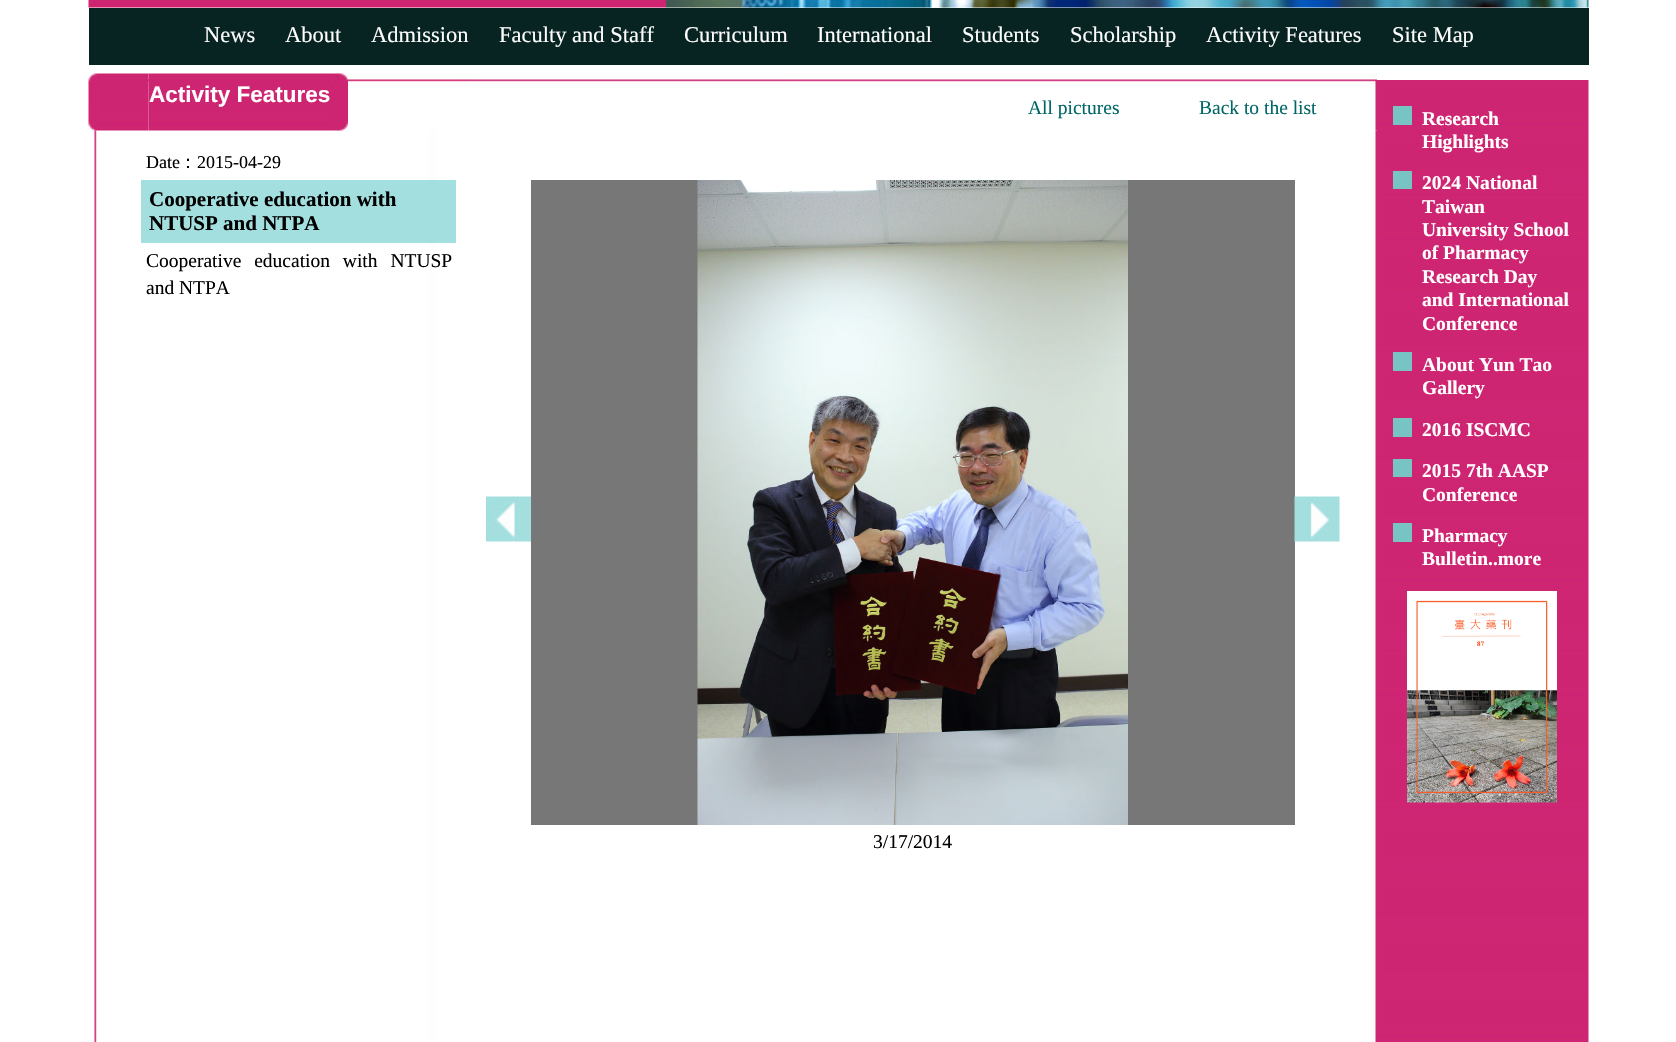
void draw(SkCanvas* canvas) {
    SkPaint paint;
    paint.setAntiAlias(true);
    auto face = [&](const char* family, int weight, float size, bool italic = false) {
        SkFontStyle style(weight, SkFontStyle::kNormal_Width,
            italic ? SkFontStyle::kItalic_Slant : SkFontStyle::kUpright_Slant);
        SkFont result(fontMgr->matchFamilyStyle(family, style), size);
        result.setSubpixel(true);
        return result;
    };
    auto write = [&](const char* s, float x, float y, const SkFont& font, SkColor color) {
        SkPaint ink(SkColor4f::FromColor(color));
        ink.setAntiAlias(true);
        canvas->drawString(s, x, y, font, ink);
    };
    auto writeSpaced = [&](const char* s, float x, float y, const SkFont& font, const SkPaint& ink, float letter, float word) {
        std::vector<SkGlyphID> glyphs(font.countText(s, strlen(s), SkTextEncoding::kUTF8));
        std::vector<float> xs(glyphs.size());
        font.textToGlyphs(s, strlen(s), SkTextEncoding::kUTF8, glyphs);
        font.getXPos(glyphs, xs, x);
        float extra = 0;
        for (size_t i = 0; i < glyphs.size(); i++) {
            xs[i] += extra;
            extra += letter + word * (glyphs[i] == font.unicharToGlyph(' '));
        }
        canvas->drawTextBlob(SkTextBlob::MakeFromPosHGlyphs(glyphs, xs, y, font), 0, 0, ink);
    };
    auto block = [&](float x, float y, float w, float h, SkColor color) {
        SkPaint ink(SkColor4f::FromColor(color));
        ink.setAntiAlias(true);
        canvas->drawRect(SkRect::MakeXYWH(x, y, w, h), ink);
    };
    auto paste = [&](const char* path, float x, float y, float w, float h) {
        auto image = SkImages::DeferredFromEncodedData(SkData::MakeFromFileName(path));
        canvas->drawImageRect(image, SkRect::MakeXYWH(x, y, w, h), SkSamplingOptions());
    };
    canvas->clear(SK_ColorWHITE);
    paste("pic1.png", 88, 0, 578, 8);
    paste("pic2.png", 666, 0, 923, 8);
    block(89, 8, 1500, 57, SkColorSetRGB(7, 36, 34));
    auto kFont1 = face("Liberation Serif", 400, 22.5f);
    write("News", 204, 42, kFont1, SK_ColorWHITE);
    write("About", 285, 42, kFont1, SK_ColorWHITE);
    write("Admission", 371, 42, kFont1, SK_ColorWHITE);
    write("Faculty and Staff", 499, 42, kFont1, SK_ColorWHITE);
    write("Curriculum", 684, 42, kFont1, SK_ColorWHITE);
    write("International", 817, 42, kFont1, SK_ColorWHITE);
    write("Students", 962, 42, kFont1, SK_ColorWHITE);
    write("Scholarship", 1070, 42, kFont1, SK_ColorWHITE);
    write("Activity Features", 1206, 42, kFont1, SK_ColorWHITE);
    write("Site Map", 1392, 42, kFont1, SK_ColorWHITE);
    paste("pic3.png", 113, 73, 1264, 58);
    paste("pic9.png", 92, 130, 1285, 912);
    paste("pic5.png", 148, 73, 182, 58);
    paste("pic4.png", 88, 73, 61, 58);
    auto kFont2 = face("Liberation Sans", 700, 22.5f);
    write("Activity Features", 149, 102, kFont2, SK_ColorWHITE);
    paste("pic6.png", 330, 73, 18, 58);
    auto kFont3 = face("Liberation Serif", 400, 19.5f);
    write("All pictures", 1028, 114, kFont3, SkColorSetRGB(0, 102, 102));
    write("Back to the list", 1199, 114, kFont3, SkColorSetRGB(0, 102, 102));
    paste("pic7.png", 1377, 80, 212, 962);
    block(1393, 106, 19, 19, SkColorSetRGB(120, 196, 196));
    auto kFont4 = face("Liberation Serif", 700, 19.5f);
    write("Research", 1422, 125, kFont4, SK_ColorWHITE);
    write("Highlights", 1422, 148, kFont4, SK_ColorWHITE);
    block(1393, 171, 19, 18, SkColorSetRGB(120, 196, 196));
    write("2024 National", 1422, 189, kFont4, SK_ColorWHITE);
    write("Taiwan", 1422, 213, kFont4, SK_ColorWHITE);
    write("University School", 1422, 236, kFont4, SK_ColorWHITE);
    write("of Pharmacy", 1422, 259, kFont4, SK_ColorWHITE);
    write("Research Day", 1422, 283, kFont4, SK_ColorWHITE);
    write("and International", 1422, 306, kFont4, SK_ColorWHITE);
    write("Conference", 1422, 330, kFont4, SK_ColorWHITE);
    block(1393, 352, 19, 19, SkColorSetRGB(120, 196, 196));
    write("About Yun Tao", 1422, 371, kFont4, SK_ColorWHITE);
    write("Gallery", 1422, 394, kFont4, SK_ColorWHITE);
    block(1393, 418, 19, 19, SkColorSetRGB(120, 196, 196));
    write("2016 ISCMC", 1422, 436, kFont4, SK_ColorWHITE);
    block(1393, 459, 19, 18, SkColorSetRGB(120, 196, 196));
    write("2015 7th AASP", 1422, 477, kFont4, SK_ColorWHITE);
    write("Conference", 1422, 501, kFont4, SK_ColorWHITE);
    block(1393, 523, 19, 19, SkColorSetRGB(120, 196, 196));
    write("Pharmacy", 1422, 542, kFont4, SK_ColorWHITE);
    write("Bulletin..more", 1422, 565, kFont4, SK_ColorWHITE);
    paste("pic8.png", 1407, 591, 150, 212);
    auto kFont5 = face("Liberation Serif", 400, 18);
    write("Date", 146, 168, kFont5, SK_ColorBLACK);
    auto kFont6 = face("WenQuanYi Zen Hei", 500, 18);
    write("：", 179, 168, kFont6, SK_ColorBLACK);
    write("2015-04-29", 197, 168, kFont5, SK_ColorBLACK);
    block(141, 180, 315, 63, SkColorSetRGB(164, 223, 223));
    auto kFont7 = face("Liberation Serif", 700, 21);
    write("Cooperative education with", 149, 206, kFont7, SK_ColorBLACK);
    write("NTUSP and NTPA", 149, 230, kFont7, SK_ColorBLACK);
    paint.setColor(SK_ColorBLACK);
    writeSpaced("Cooperative education with NTUSP", 146, 267, kFont3, paint, 0, 8);
    write("and NTPA", 146, 294, kFont3, SK_ColorBLACK);
    paste("pic10.png", 486, 496, 45, 46);
    block(531, 180, 764, 645, SkColorSetRGB(119, 119, 119));
    paste("pic11.png", 697, 180, 431, 645);
    paste("pic12.png", 1294, 496, 46, 46);
    write("3/17/2014", 873, 848, kFont3, SK_ColorBLACK);
}
